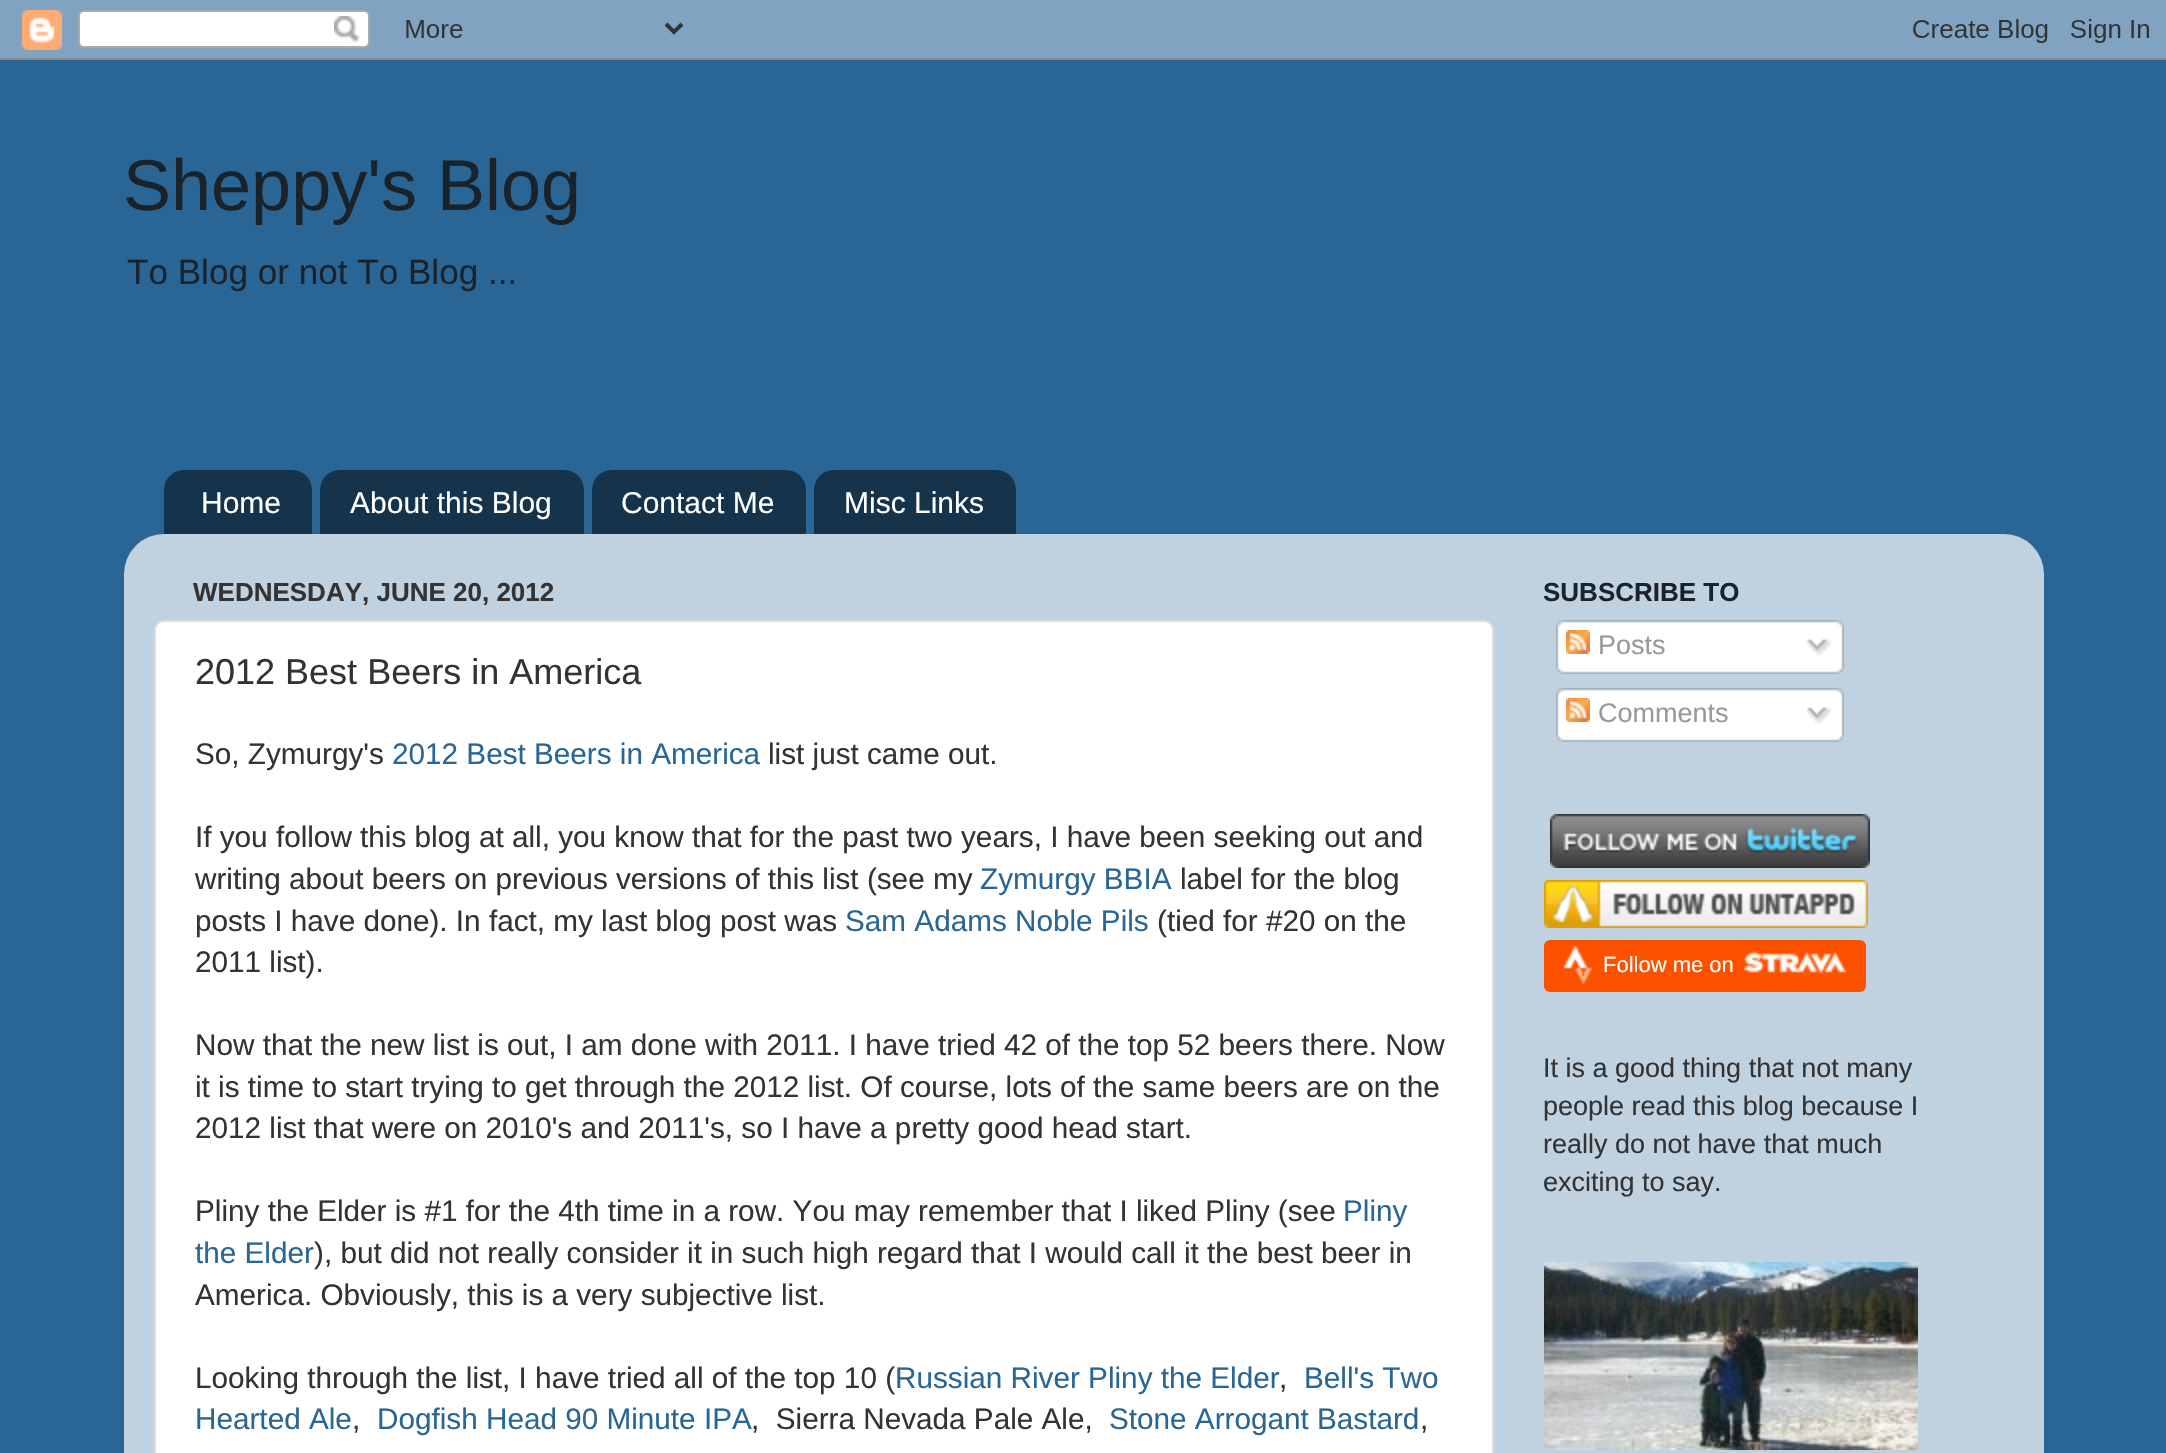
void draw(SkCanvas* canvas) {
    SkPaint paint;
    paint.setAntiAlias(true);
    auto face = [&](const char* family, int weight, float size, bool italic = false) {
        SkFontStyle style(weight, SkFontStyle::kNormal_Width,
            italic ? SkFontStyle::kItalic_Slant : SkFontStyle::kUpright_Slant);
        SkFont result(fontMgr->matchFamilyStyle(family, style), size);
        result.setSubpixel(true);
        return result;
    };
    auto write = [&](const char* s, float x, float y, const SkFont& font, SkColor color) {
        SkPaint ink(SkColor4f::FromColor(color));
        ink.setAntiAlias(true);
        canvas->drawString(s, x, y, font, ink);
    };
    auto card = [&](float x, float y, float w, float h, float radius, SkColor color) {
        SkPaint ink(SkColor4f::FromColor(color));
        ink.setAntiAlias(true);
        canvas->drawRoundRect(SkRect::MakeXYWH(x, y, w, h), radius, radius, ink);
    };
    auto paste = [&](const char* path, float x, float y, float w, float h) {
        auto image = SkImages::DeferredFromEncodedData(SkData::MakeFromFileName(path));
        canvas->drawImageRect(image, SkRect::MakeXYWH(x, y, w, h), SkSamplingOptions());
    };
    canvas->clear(SkColorSetRGB(41, 102, 149));
    paste("pic1.png", 0, 0, 2166, 60);
    auto kFont1 = face("Liberation Sans", 400, 72);
    write("Sheppy's Blog", 123, 210, kFont1, SkColorSetRGB(26, 34, 42));
    auto kFont2 = face("Liberation Sans", 400, 35.1f);
    write("To Blog or not To Blog ...", 127, 284, kFont2, SkColorSetRGB(26, 34, 42));
    paste("pic2.png", 164, 470, 148, 64);
    auto kFont3 = face("Liberation Sans", 400, 30);
    write("Home", 201, 513, kFont3, SK_ColorWHITE);
    paste("pic3.png", 320, 470, 264, 64);
    write("About this Blog", 350, 513, kFont3, SK_ColorWHITE);
    paste("pic4.png", 592, 470, 214, 64);
    write("Contact Me", 621, 513, kFont3, SK_ColorWHITE);
    paste("pic5.png", 814, 470, 202, 64);
    write("Misc Links", 844, 513, kFont3, SK_ColorWHITE);
    paste("pic6.png", 124, 534, 1920, 919);
    auto kFont4 = face("Liberation Sans", 700, 26);
    write("WEDNESDAY, JUNE 20, 2012", 193, 601, kFont4, SkColorSetRGB(51, 51, 51));
    paint.setColor(SK_ColorWHITE);
    canvas->drawRoundRect(SkRect::MakeXYWH(155, 621, 1338, 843), 9, 9, paint);
    paint.setStyle(SkPaint::kStroke_Style);
    paint.setStrokeWidth(2);
    paint.setColor(SkColorSetRGB(221, 221, 221));
    canvas->drawRoundRect(SkRect::MakeXYWH(155, 621, 1338, 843), 9, 9, paint);
    auto kFont5 = face("Liberation Sans", 400, 36);
    write("2012 Best Beers in America", 195, 684, kFont5, SkColorSetRGB(51, 51, 51));
    auto kFont6 = face("Liberation Sans", 400, 29.7f);
    write("So, Zymurgy's", 195, 764, kFont6, SkColorSetRGB(51, 51, 51));
    write("2012 Best Beers in America", 392, 764, kFont6, SkColorSetRGB(41, 102, 149));
    write("list just came out.", 768, 764, kFont6, SkColorSetRGB(51, 51, 51));
    write("If you follow this blog at all, you know that for the past two years, I have been seeking out and", 195, 847, kFont6, SkColorSetRGB(51, 51, 51));
    write("writing about beers on previous versions of this list (see my", 195, 889, kFont6, SkColorSetRGB(51, 51, 51));
    write("Zymurgy BBIA", 980, 889, kFont6, SkColorSetRGB(41, 102, 149));
    write("label for the blog", 1180, 889, kFont6, SkColorSetRGB(51, 51, 51));
    write("posts I have done). In fact, my last blog post was", 195, 931, kFont6, SkColorSetRGB(51, 51, 51));
    write("Sam Adams Noble Pils", 845, 931, kFont6, SkColorSetRGB(41, 102, 149));
    write("(tied for #20 on the", 1157, 931, kFont6, SkColorSetRGB(51, 51, 51));
    write("2011 list).", 195, 972, kFont6, SkColorSetRGB(51, 51, 51));
    write("Now that the new list is out, I am done with 2011. I have tried 42 of the top 52 beers there. Now", 195, 1055, kFont6, SkColorSetRGB(51, 51, 51));
    write("it is time to start trying to get through the 2012 list. Of course, lots of the same beers are on the", 195, 1097, kFont6, SkColorSetRGB(51, 51, 51));
    write("2012 list that were on 2010's and 2011's, so I have a pretty good head start.", 195, 1138, kFont6, SkColorSetRGB(51, 51, 51));
    write("Pliny the Elder is #1 for the 4th time in a row. You may remember that I liked Pliny (see", 195, 1221, kFont6, SkColorSetRGB(51, 51, 51));
    write("Pliny", 1343, 1221, kFont6, SkColorSetRGB(41, 102, 149));
    write("the Elder", 195, 1263, kFont6, SkColorSetRGB(41, 102, 149));
    write("), but did not really consider it in such high regard that I would call it the best beer in", 314, 1263, kFont6, SkColorSetRGB(51, 51, 51));
    write("America. Obviously, this is a very subjective list.", 195, 1305, kFont6, SkColorSetRGB(51, 51, 51));
    write("Looking through the list, I have tried all of the top 10 (", 195, 1388, kFont6, SkColorSetRGB(51, 51, 51));
    write("Russian River Pliny the Elder", 895, 1388, kFont6, SkColorSetRGB(41, 102, 149));
    write(",", 1279, 1388, kFont6, SkColorSetRGB(51, 51, 51));
    write("Bell's Two", 1304, 1388, kFont6, SkColorSetRGB(41, 102, 149));
    write("Hearted Ale", 195, 1429, kFont6, SkColorSetRGB(41, 102, 149));
    write(",", 352, 1429, kFont6, SkColorSetRGB(51, 51, 51));
    write("Dogfish Head 90 Minute IPA", 377, 1429, kFont6, SkColorSetRGB(41, 102, 149));
    write(",  Sierra Nevada Pale Ale,", 751, 1429, kFont6, SkColorSetRGB(51, 51, 51));
    write("Stone Arrogant Bastard", 1109, 1429, kFont6, SkColorSetRGB(41, 102, 149));
    write(",", 1420, 1429, kFont6, SkColorSetRGB(51, 51, 51));
    write("SUBSCRIBE TO", 1543, 601, kFont4, SkColorSetRGB(26, 34, 42));
    paste("pic7.png", 1556, 620, 288, 48);
    paste("pic8.png", 1566, 630, 24, 24);
    auto kFont7 = face("Liberation Sans", 400, 27);
    write("Posts", 1598, 654, kFont7, SkColorSetRGB(153, 153, 153));
    paste("pic9.png", 1806, 638, 26, 18);
    paste("pic10.png", 1556, 668, 288, 6);
    paste("pic7.png", 1556, 688, 288, 48);
    paste("pic8.png", 1566, 698, 24, 24);
    write("Comments", 1598, 722, kFont7, SkColorSetRGB(153, 153, 153));
    paste("pic9.png", 1806, 706, 26, 18);
    paste("pic10.png", 1556, 736, 288, 6);
    paste("pic11.png", 1550, 814, 320, 54);
    paste("pic12.png", 1544, 880, 324, 48);
    card(1544, 940, 322, 52, 6, SkColorSetRGB(252, 82, 0));
    paste("pic13.png", 1564, 946, 28, 38);
    auto kFont8 = face("Liberation Sans", 400, 22);
    write("Follow me on", 1603, 972, kFont8, SK_ColorWHITE);
    paste("pic14.png", 1744, 951, 102, 24);
    write("It is a good thing that not many", 1543, 1077, kFont7, SkColorSetRGB(51, 51, 51));
    write("people read this blog because I", 1543, 1115, kFont7, SkColorSetRGB(51, 51, 51));
    write("really do not have that much", 1543, 1153, kFont7, SkColorSetRGB(51, 51, 51));
    write("exciting to say.", 1543, 1191, kFont7, SkColorSetRGB(51, 51, 51));
    paste("pic15.png", 1544, 1262, 374, 188);
}
